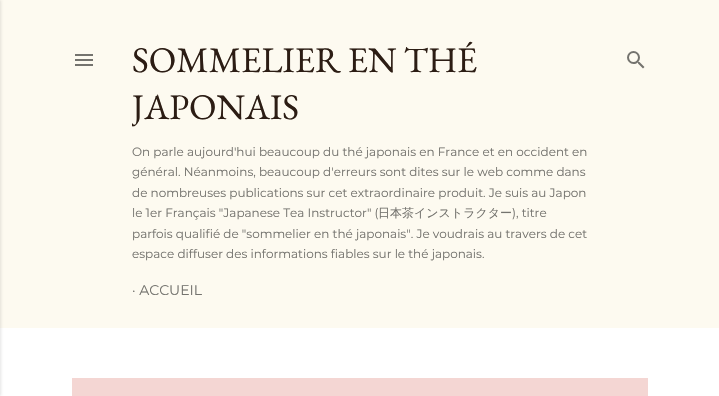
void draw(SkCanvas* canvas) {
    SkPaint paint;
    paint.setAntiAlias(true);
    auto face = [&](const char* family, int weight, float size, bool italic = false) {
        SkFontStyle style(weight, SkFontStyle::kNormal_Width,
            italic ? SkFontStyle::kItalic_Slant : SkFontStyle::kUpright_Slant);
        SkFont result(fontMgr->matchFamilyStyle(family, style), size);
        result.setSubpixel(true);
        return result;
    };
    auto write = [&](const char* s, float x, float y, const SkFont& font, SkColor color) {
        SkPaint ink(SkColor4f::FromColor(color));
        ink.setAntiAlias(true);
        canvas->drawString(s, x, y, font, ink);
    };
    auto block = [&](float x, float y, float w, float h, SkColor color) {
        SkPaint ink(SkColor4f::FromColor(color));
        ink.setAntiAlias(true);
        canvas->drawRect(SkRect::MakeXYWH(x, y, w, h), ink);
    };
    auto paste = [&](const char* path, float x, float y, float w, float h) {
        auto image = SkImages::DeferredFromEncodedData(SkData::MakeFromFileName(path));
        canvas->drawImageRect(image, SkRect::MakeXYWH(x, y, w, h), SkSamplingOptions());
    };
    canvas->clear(SK_ColorWHITE);
    block(0, 0, 719, 328, SkColorSetRGB(253, 250, 240));
    paint.setColor(SkColorSetARGB(26, 0, 0, 0));
    paint.setMaskFilter(SkMaskFilter::MakeBlur(kNormal_SkBlurStyle, 1.5f));
    canvas->drawRect(SkRect::MakeXYWH(-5, 0, 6, 396), paint);
    paint.setMaskFilter(nullptr);
    paste("pic1.png", 75, 54, 18, 12);
    auto kFont1 = face("EB Garamond", 400, 36);
    write("SOMMELIER EN THÉ", 132, 72, kFont1, SkColorSetRGB(44, 29, 20));
    canvas->save();
    canvas->clipRect(SkRect::MakeXYWH(132, 36, 456, 268));
    write("JAPONAIS", 132, 119, kFont1, SkColorSetRGB(44, 29, 20));
    canvas->restore();
    auto kFont2 = face("Montserrat", 400, 12);
    write("On parle aujourd'hui beaucoup du thé japonais en France et en occident en", 132, 156, kFont2, SkColorSetRGB(116, 115, 110));
    write("général. Néanmoins, beaucoup d'erreurs sont dites sur le web comme dans", 132, 176, kFont2, SkColorSetRGB(116, 115, 110));
    write("de nombreuses publications sur cet extraordinaire produit. Je suis au Japon", 132, 197, kFont2, SkColorSetRGB(116, 115, 110));
    write("le 1er Français \"Japanese Tea Instructor\" (", 132, 217, kFont2, SkColorSetRGB(116, 115, 110));
    auto kFont3 = face("WenQuanYi Zen Hei", 500, 12);
    write("日本茶インストラクター", 378, 217, kFont3, SkColorSetRGB(116, 115, 110));
    write("), titre", 512, 217, kFont2, SkColorSetRGB(116, 115, 110));
    write("parfois qualifié de \"sommelier en thé japonais\". Je voudrais au travers de cet", 132, 238, kFont2, SkColorSetRGB(116, 115, 110));
    write("espace diffuser des informations fiables sur le thé japonais.", 132, 258, kFont2, SkColorSetRGB(116, 115, 110));
    auto kFont4 = face("Montserrat", 400, 14);
    write("· ACCUEIL", 132, 295, kFont4, SkColorSetRGB(116, 115, 110));
    paste("pic2.png", 627, 51, 18, 18);
    block(72, 378, 576, 18, SkColorSetRGB(244, 214, 211));
}
